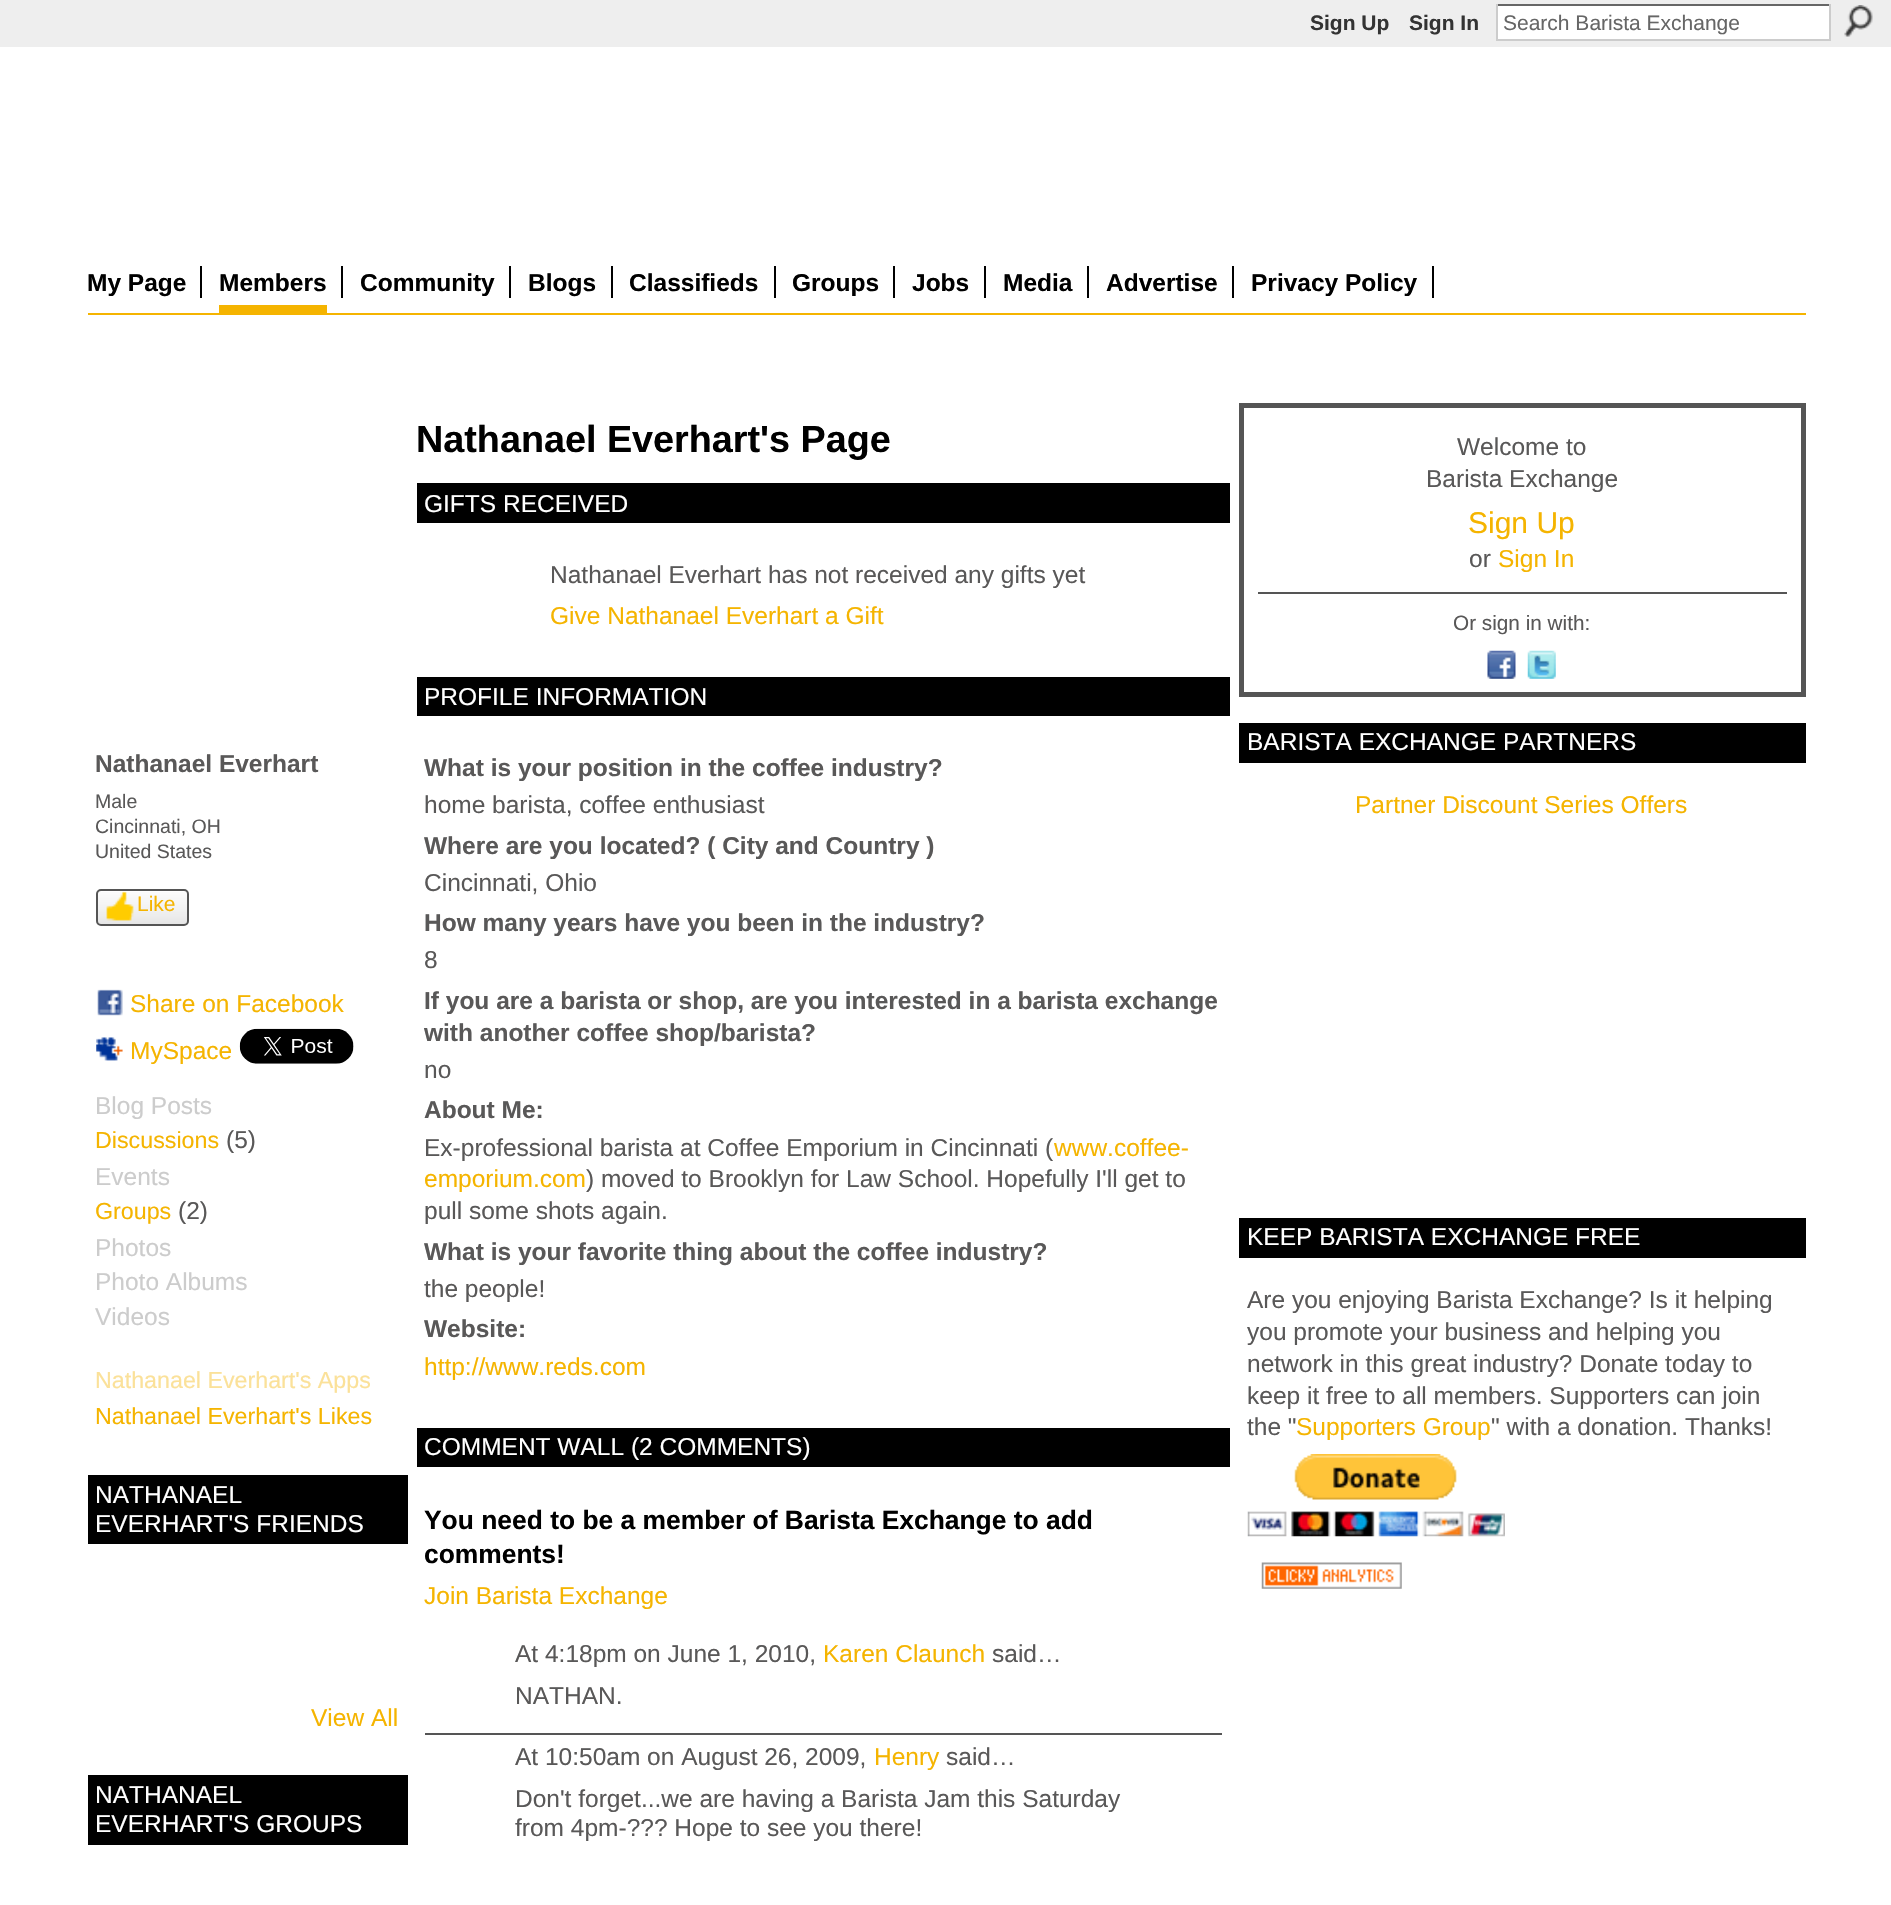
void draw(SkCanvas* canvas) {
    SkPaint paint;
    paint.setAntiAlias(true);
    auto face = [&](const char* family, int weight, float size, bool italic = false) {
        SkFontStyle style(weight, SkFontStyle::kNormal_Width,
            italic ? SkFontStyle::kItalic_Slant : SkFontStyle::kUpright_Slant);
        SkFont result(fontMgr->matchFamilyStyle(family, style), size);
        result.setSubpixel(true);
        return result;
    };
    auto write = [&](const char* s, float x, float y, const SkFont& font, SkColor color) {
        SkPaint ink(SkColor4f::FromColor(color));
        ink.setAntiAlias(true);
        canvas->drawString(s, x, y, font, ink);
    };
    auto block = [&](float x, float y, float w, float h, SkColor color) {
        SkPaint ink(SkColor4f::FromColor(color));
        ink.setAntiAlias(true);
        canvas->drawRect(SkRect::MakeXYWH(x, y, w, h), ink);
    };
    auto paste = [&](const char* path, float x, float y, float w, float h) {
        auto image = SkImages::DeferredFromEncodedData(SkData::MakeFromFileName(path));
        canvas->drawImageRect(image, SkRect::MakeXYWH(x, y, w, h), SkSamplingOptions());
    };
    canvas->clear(SK_ColorWHITE);
    block(0, 0, 1891, 47, SkColorSetRGB(238, 238, 238));
    auto kFont1 = face("Liberation Sans", 700, 21);
    write("Sign Up", 1310, 30, kFont1, SkColorSetRGB(51, 51, 51));
    write("Sign In", 1409, 30, kFont1, SkColorSetRGB(51, 51, 51));
    block(1498, 6, 331, 33, SK_ColorWHITE);
    block(1496, 4, 335, 2, SkColorSetRGB(102, 102, 102));
    block(1829, 4, 2, 36, SkColorSetRGB(204, 204, 204));
    block(1496, 39, 335, 2, SkColorSetRGB(204, 204, 204));
    block(1496, 4, 2, 36, SkColorSetRGB(204, 204, 204));
    auto kFont2 = face("Liberation Sans", 400, 21);
    write("Search Barista Exchange", 1503, 30, kFont2, SkColorSetRGB(102, 102, 102));
    paste("pic1.png", 1844, 5, 29, 32);
    block(88, 313, 1718, 2, SkColorSetRGB(245, 180, 0));
    block(200, 266, 2, 32, SK_ColorBLACK);
    auto kFont3 = face("Liberation Sans", 700, 24.5f);
    write("My Page", 87, 291, kFont3, SK_ColorBLACK);
    block(341, 266, 2, 32, SK_ColorBLACK);
    write("Members", 219, 291, kFont3, SK_ColorBLACK);
    block(219, 305, 108, 8, SkColorSetRGB(245, 180, 0));
    block(509, 266, 2, 32, SK_ColorBLACK);
    write("Community", 360, 291, kFont3, SK_ColorBLACK);
    block(611, 266, 2, 32, SK_ColorBLACK);
    write("Blogs", 528, 291, kFont3, SK_ColorBLACK);
    block(774, 266, 2, 32, SK_ColorBLACK);
    write("Classifieds", 629, 291, kFont3, SK_ColorBLACK);
    block(893, 266, 2, 32, SK_ColorBLACK);
    write("Groups", 792, 291, kFont3, SK_ColorBLACK);
    block(984, 266, 2, 32, SK_ColorBLACK);
    write("Jobs", 912, 291, kFont3, SK_ColorBLACK);
    block(1087, 266, 2, 32, SK_ColorBLACK);
    write("Media", 1003, 291, kFont3, SK_ColorBLACK);
    block(1232, 266, 2, 32, SK_ColorBLACK);
    write("Advertise", 1106, 291, kFont3, SK_ColorBLACK);
    block(1432, 266, 2, 32, SK_ColorBLACK);
    write("Privacy Policy", 1251, 291, kFont3, SK_ColorBLACK);
    write("Nathanael Everhart", 95, 772, kFont3, SkColorSetRGB(89, 88, 88));
    auto kFont4 = face("Liberation Sans", 400, 19.5f);
    write("Male", 95, 808, kFont4, SkColorSetRGB(89, 88, 88));
    write("Cincinnati, OH", 95, 833, kFont4, SkColorSetRGB(89, 88, 88));
    write("United States", 95, 858, kFont4, SkColorSetRGB(89, 88, 88));
    paste("pic2.png", 96, 892, 93, 34);
    paint.setStyle(SkPaint::kStroke_Style);
    paint.setStrokeWidth(2);
    paint.setColor(SkColorSetRGB(85, 85, 85));
    canvas->drawRoundRect(SkRect::MakeXYWH(97, 890, 91, 35), 4, 4, paint);
    paste("pic3.png", 106, 891, 28, 30);
    write("Like", 137, 911, kFont2, SkColorSetRGB(245, 180, 0));
    paste("pic4.png", 97, 989, 26, 27);
    auto kFont5 = face("Liberation Sans", 400, 24.5f);
    write("Share on Facebook", 130, 1012, kFont5, SkColorSetRGB(245, 180, 0));
    paste("pic5.png", 96, 1037, 27, 24);
    write("MySpace", 130, 1059, kFont5, SkColorSetRGB(245, 180, 0));
    paste("pic6.png", 239, 1028, 115, 36);
    write("Blog Posts", 95, 1114, kFont5, SkColorSetRGB(204, 204, 204));
    auto kFont6 = face("Liberation Sans", 400, 23.25f);
    write("Discussions", 95, 1148, kFont6, SkColorSetRGB(245, 180, 0));
    write("(5)", 226, 1148, kFont5, SkColorSetRGB(89, 88, 88));
    write("Events", 95, 1185, kFont5, SkColorSetRGB(204, 204, 204));
    write("Groups", 95, 1219, kFont6, SkColorSetRGB(245, 180, 0));
    write("(2)", 178, 1219, kFont5, SkColorSetRGB(89, 88, 88));
    write("Photos", 95, 1256, kFont5, SkColorSetRGB(204, 204, 204));
    write("Photo Albums", 95, 1290, kFont5, SkColorSetRGB(204, 204, 204));
    write("Videos", 95, 1325, kFont5, SkColorSetRGB(204, 204, 204));
    write("Nathanael Everhart's Apps", 95, 1388, kFont6, SkColorSetRGB(251, 225, 153));
    write("Nathanael Everhart's Likes", 95, 1424, kFont6, SkColorSetRGB(245, 180, 0));
    block(88, 1475, 320, 69, SK_ColorBLACK);
    write("NATHANAEL", 95, 1503, kFont5, SK_ColorWHITE);
    write("EVERHART'S FRIENDS", 95, 1532, kFont5, SK_ColorWHITE);
    write("View All", 311, 1726, kFont5, SkColorSetRGB(245, 180, 0));
    block(88, 1775, 320, 70, SK_ColorBLACK);
    write("NATHANAEL", 95, 1803, kFont5, SK_ColorWHITE);
    write("EVERHART'S GROUPS", 95, 1832, kFont5, SK_ColorWHITE);
    auto kFont7 = face("Liberation Sans", 700, 37.75f);
    write("Nathanael Everhart's Page", 416, 452, kFont7, SK_ColorBLACK);
    block(417, 483, 813, 40, SK_ColorBLACK);
    write("GIFTS RECEIVED", 424, 512, kFont5, SK_ColorWHITE);
    write("Nathanael Everhart has not received any gifts yet", 550, 583, kFont5, SkColorSetRGB(89, 88, 88));
    write("Give Nathanael Everhart a Gift", 550, 624, kFont5, SkColorSetRGB(245, 180, 0));
    block(417, 677, 813, 39, SK_ColorBLACK);
    write("PROFILE INFORMATION", 424, 705, kFont5, SK_ColorWHITE);
    write("What is your position in the coffee industry?", 424, 776, kFont3, SkColorSetRGB(89, 88, 88));
    write("home barista, coffee enthusiast", 424, 813, kFont5, SkColorSetRGB(89, 88, 88));
    write("Where are you located? ( City and Country )", 424, 854, kFont3, SkColorSetRGB(89, 88, 88));
    write("Cincinnati, Ohio", 424, 891, kFont5, SkColorSetRGB(89, 88, 88));
    write("How many years have you been in the industry?", 424, 931, kFont3, SkColorSetRGB(89, 88, 88));
    write("8", 424, 968, kFont5, SkColorSetRGB(89, 88, 88));
    write("If you are a barista or shop, are you interested in a barista exchange", 424, 1009, kFont3, SkColorSetRGB(89, 88, 88));
    write("with another coffee shop/barista?", 424, 1041, kFont3, SkColorSetRGB(89, 88, 88));
    write("no", 424, 1078, kFont5, SkColorSetRGB(89, 88, 88));
    write("About Me:", 424, 1118, kFont3, SkColorSetRGB(89, 88, 88));
    write("Ex-professional barista at Coffee Emporium in Cincinnati (", 424, 1156, kFont5, SkColorSetRGB(89, 88, 88));
    write("www.coffee-", 1054, 1156, kFont5, SkColorSetRGB(245, 180, 0));
    write("emporium.com", 424, 1187, kFont5, SkColorSetRGB(245, 180, 0));
    write(") moved to Brooklyn for Law School. Hopefully I'll get to", 586, 1187, kFont5, SkColorSetRGB(89, 88, 88));
    write("pull some shots again.", 424, 1219, kFont5, SkColorSetRGB(89, 88, 88));
    write("What is your favorite thing about the coffee industry?", 424, 1260, kFont3, SkColorSetRGB(89, 88, 88));
    write("the people!", 424, 1297, kFont5, SkColorSetRGB(89, 88, 88));
    write("Website:", 424, 1337, kFont3, SkColorSetRGB(89, 88, 88));
    write("http://www.reds.com", 424, 1375, kFont5, SkColorSetRGB(245, 180, 0));
    block(417, 1428, 813, 39, SK_ColorBLACK);
    write("COMMENT WALL (2 COMMENTS)", 424, 1455, kFont5, SK_ColorWHITE);
    auto kFont8 = face("Liberation Sans", 700, 26.4f);
    write("You need to be a member of Barista Exchange to add", 424, 1529, kFont8, SK_ColorBLACK);
    write("comments!", 424, 1563, kFont8, SK_ColorBLACK);
    write("Join Barista Exchange", 424, 1604, kFont5, SkColorSetRGB(245, 180, 0));
    block(425, 1733, 797, 2, SkColorSetRGB(85, 85, 85));
    write("At 4:18pm on June 1, 2010,", 515, 1662, kFont5, SkColorSetRGB(89, 88, 88));
    write("Karen Claunch", 823, 1662, kFont5, SkColorSetRGB(245, 180, 0));
    write("said…", 992, 1662, kFont5, SkColorSetRGB(89, 88, 88));
    write("NATHAN.", 515, 1704, kFont5, SkColorSetRGB(89, 88, 88));
    write("At 10:50am on August 26, 2009,", 515, 1765, kFont5, SkColorSetRGB(89, 88, 88));
    write("Henry", 874, 1765, kFont5, SkColorSetRGB(245, 180, 0));
    write("said…", 946, 1765, kFont5, SkColorSetRGB(89, 88, 88));
    write("Don't forget...we are having a Barista Jam this Saturday", 515, 1807, kFont5, SkColorSetRGB(89, 88, 88));
    write("from 4pm-?\077? Hope to see you there!", 515, 1836, kFont5, SkColorSetRGB(89, 88, 88));
    paint.setStrokeWidth(5);
    canvas->drawRect(SkRect::MakeXYWH(1241.5f, 405.5f, 562, 289), paint);
    write("Welcome to", 1457, 455, kFont5, SkColorSetRGB(89, 88, 88));
    write("Barista Exchange", 1426, 487, kFont5, SkColorSetRGB(89, 88, 88));
    auto kFont9 = face("Liberation Sans", 400, 30);
    write("Sign Up", 1468, 533, kFont9, SkColorSetRGB(245, 180, 0));
    write("or", 1469, 567, kFont5, SkColorSetRGB(89, 88, 88));
    write("Sign In", 1498, 567, kFont5, SkColorSetRGB(245, 180, 0));
    block(1258, 592, 529, 2, SkColorSetRGB(85, 85, 85));
    auto kFont10 = face("Liberation Sans", 400, 20.75f);
    write("Or sign in with:", 1453, 630, kFont10, SkColorSetRGB(89, 88, 88));
    paste("pic7.png", 1487, 650, 29, 29);
    paste("pic8.png", 1527, 650, 29, 29);
    block(1239, 723, 567, 40, SK_ColorBLACK);
    write("BARISTA EXCHANGE PARTNERS", 1247, 750, kFont5, SK_ColorWHITE);
    write("Partner Discount Series Offers", 1355, 813, kFont5, SkColorSetRGB(245, 180, 0));
    block(1239, 1218, 567, 40, SK_ColorBLACK);
    write("KEEP BARISTA EXCHANGE FREE", 1247, 1245, kFont5, SK_ColorWHITE);
    write("Are you enjoying Barista Exchange? Is it helping", 1247, 1308, kFont5, SkColorSetRGB(89, 88, 88));
    write("you promote your business and helping you", 1247, 1340, kFont5, SkColorSetRGB(89, 88, 88));
    write("network in this great industry? Donate today to", 1247, 1372, kFont5, SkColorSetRGB(89, 88, 88));
    write("keep it free to all members. Supporters can join", 1247, 1404, kFont5, SkColorSetRGB(89, 88, 88));
    write("the \"", 1247, 1435, kFont5, SkColorSetRGB(89, 88, 88));
    write("Supporters Group", 1296, 1435, kFont5, SkColorSetRGB(245, 180, 0));
    write("\" with a donation. Thanks!", 1491, 1435, kFont5, SkColorSetRGB(89, 88, 88));
    paste("pic9.png", 1247, 1454, 258, 83);
    paste("pic10.png", 1261, 1562, 141, 27);
}
